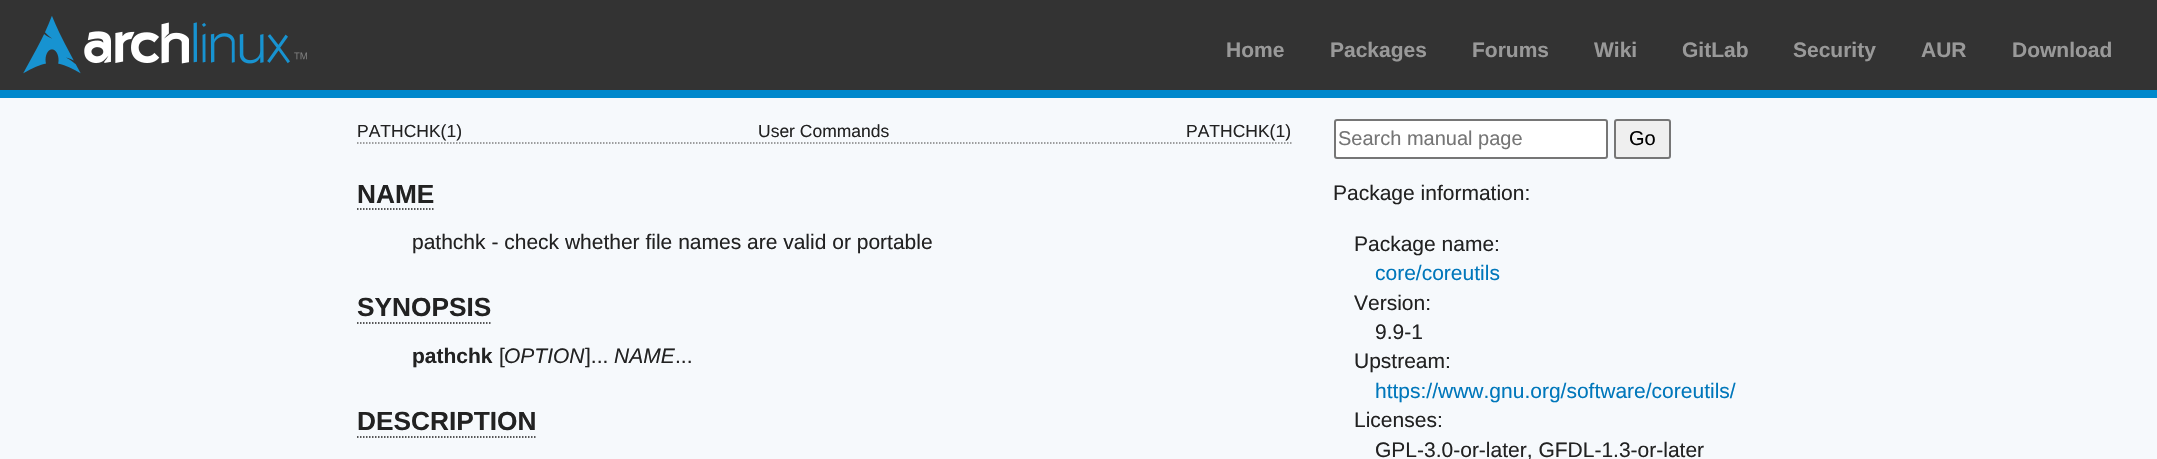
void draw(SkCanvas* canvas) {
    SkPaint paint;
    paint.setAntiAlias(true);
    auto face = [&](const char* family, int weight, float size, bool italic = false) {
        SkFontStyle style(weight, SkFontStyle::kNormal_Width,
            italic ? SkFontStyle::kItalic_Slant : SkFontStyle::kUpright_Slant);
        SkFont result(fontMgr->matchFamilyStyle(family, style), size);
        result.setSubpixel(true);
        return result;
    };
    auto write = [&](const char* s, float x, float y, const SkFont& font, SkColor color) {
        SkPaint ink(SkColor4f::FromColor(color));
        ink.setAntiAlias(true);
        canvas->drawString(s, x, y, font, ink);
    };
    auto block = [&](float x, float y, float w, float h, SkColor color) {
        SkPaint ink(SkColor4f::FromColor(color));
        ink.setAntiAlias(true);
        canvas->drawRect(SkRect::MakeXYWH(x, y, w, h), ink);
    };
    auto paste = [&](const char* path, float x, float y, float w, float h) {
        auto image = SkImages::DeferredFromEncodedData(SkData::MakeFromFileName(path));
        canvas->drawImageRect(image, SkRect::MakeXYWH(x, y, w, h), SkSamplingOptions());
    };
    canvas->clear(SkColorSetRGB(246, 249, 252));
    block(0, 0, 2157, 90, SkColorSetRGB(51, 51, 51));
    block(0, 90, 2157, 8, SkColorSetRGB(0, 136, 204));
    paste("pic1.png", 23, 16, 284, 58);
    auto kFont1 = face("Liberation Sans", 700, 21);
    write("Home", 1226, 57, kFont1, SkColorSetRGB(153, 153, 153));
    write("Packages", 1330, 57, kFont1, SkColorSetRGB(153, 153, 153));
    write("Forums", 1472, 57, kFont1, SkColorSetRGB(153, 153, 153));
    write("Wiki", 1594, 57, kFont1, SkColorSetRGB(153, 153, 153));
    write("GitLab", 1682, 57, kFont1, SkColorSetRGB(153, 153, 153));
    write("Security", 1793, 57, kFont1, SkColorSetRGB(153, 153, 153));
    write("AUR", 1921, 57, kFont1, SkColorSetRGB(153, 153, 153));
    write("Download", 2012, 57, kFont1, SkColorSetRGB(153, 153, 153));
    paint.setStyle(SkPaint::kStroke_Style);
    paint.setStrokeWidth(1.5f);
    paint.setColor(SkColorSetRGB(128, 128, 128));
    paint.setPathEffect(SkDashPathEffect::Make({{1.5f, 1.5f}}, 0));
    canvas->drawPath(SkPathBuilder().moveTo(357, 143).lineTo(1291.5f, 143).detach(), paint);
    paint.setPathEffect(nullptr);
    auto kFont2 = face("Liberation Sans", 400, 17.5f);
    write("PATHCHK(1)", 357, 137, kFont2, SkColorSetRGB(34, 34, 34));
    write("User Commands", 758, 137, kFont2, SkColorSetRGB(34, 34, 34));
    write("PATHCHK(1)", 1186, 137, kFont2, SkColorSetRGB(34, 34, 34));
    auto kFont3 = face("Liberation Sans", 700, 26.25f);
    write("NAME", 357, 203, kFont3, SkColorSetRGB(34, 34, 34));
    paint.setColor(SkColorSetRGB(34, 34, 34));
    paint.setPathEffect(SkDashPathEffect::Make({{1.5f, 1.5f}}, 0));
    canvas->drawPath(SkPathBuilder().moveTo(357, 209).lineTo(433.5f, 209).detach(), paint);
    paint.setPathEffect(nullptr);
    auto kFont4 = face("Liberation Sans", 400, 21);
    write("pathchk - check whether file names are valid or portable", 412, 249, kFont4, SkColorSetRGB(34, 34, 34));
    write("SYNOPSIS", 357, 316, kFont3, SkColorSetRGB(34, 34, 34));
    paint.setPathEffect(SkDashPathEffect::Make({{1.5f, 1.5f}}, 0));
    canvas->drawPath(SkPathBuilder().moveTo(357, 323).lineTo(490.5f, 323).detach(), paint);
    paint.setPathEffect(nullptr);
    write("pathchk", 412, 363, kFont1, SkColorSetRGB(34, 34, 34));
    write("[", 499, 363, kFont4, SkColorSetRGB(34, 34, 34));
    auto kFont5 = face("Liberation Sans", 400, 21, true);
    write("OPTION", 504, 363, kFont5, SkColorSetRGB(34, 34, 34));
    write("]...", 585, 363, kFont4, SkColorSetRGB(34, 34, 34));
    write("NAME", 614, 363, kFont5, SkColorSetRGB(34, 34, 34));
    write("...", 675, 363, kFont4, SkColorSetRGB(34, 34, 34));
    write("DESCRIPTION", 357, 430, kFont3, SkColorSetRGB(34, 34, 34));
    paint.setPathEffect(SkDashPathEffect::Make({{1.5f, 1.5f}}, 0));
    canvas->drawPath(SkPathBuilder().moveTo(357, 437).lineTo(535.5f, 437).detach(), paint);
    paint.setPathEffect(nullptr);
    paint.setStyle(SkPaint::kFill_Style);
    paint.setColor(SK_ColorWHITE);
    canvas->drawRoundRect(SkRect::MakeXYWH(1335, 120, 272, 38), 2, 2, paint);
    paint.setStyle(SkPaint::kStroke_Style);
    paint.setStrokeWidth(2);
    paint.setColor(SkColorSetRGB(118, 118, 118));
    canvas->drawRoundRect(SkRect::MakeXYWH(1335, 120, 272, 38), 2, 2, paint);
    auto kFont6 = face("Liberation Sans", 400, 20);
    write("Search manual page", 1338, 145, kFont6, SkColorSetRGB(117, 117, 117));
    paint.setStyle(SkPaint::kFill_Style);
    paint.setColor(SkColorSetRGB(239, 239, 239));
    canvas->drawRoundRect(SkRect::MakeXYWH(1615, 120, 55, 38), 2, 2, paint);
    paint.setStyle(SkPaint::kStroke_Style);
    paint.setColor(SkColorSetRGB(118, 118, 118));
    canvas->drawRoundRect(SkRect::MakeXYWH(1615, 120, 55, 38), 2, 2, paint);
    write("Go", 1629, 145, kFont6, SK_ColorBLACK);
    write("Package information:", 1333, 200, kFont4, SkColorSetRGB(34, 34, 34));
    write("Package name:", 1354, 251, kFont4, SkColorSetRGB(34, 34, 34));
    write("core/coreutils", 1375, 280, kFont4, SkColorSetRGB(0, 119, 187));
    write("Version:", 1354, 310, kFont4, SkColorSetRGB(34, 34, 34));
    write("9.9-1", 1375, 339, kFont4, SkColorSetRGB(34, 34, 34));
    write("Upstream:", 1354, 368, kFont4, SkColorSetRGB(34, 34, 34));
    write("https://www.gnu.org/software/coreutils/", 1375, 398, kFont4, SkColorSetRGB(0, 119, 187));
    write("Licenses:", 1354, 427, kFont4, SkColorSetRGB(34, 34, 34));
    write("GPL-3.0-or-later, GFDL-1.3-or-later", 1375, 457, kFont4, SkColorSetRGB(34, 34, 34));
}
